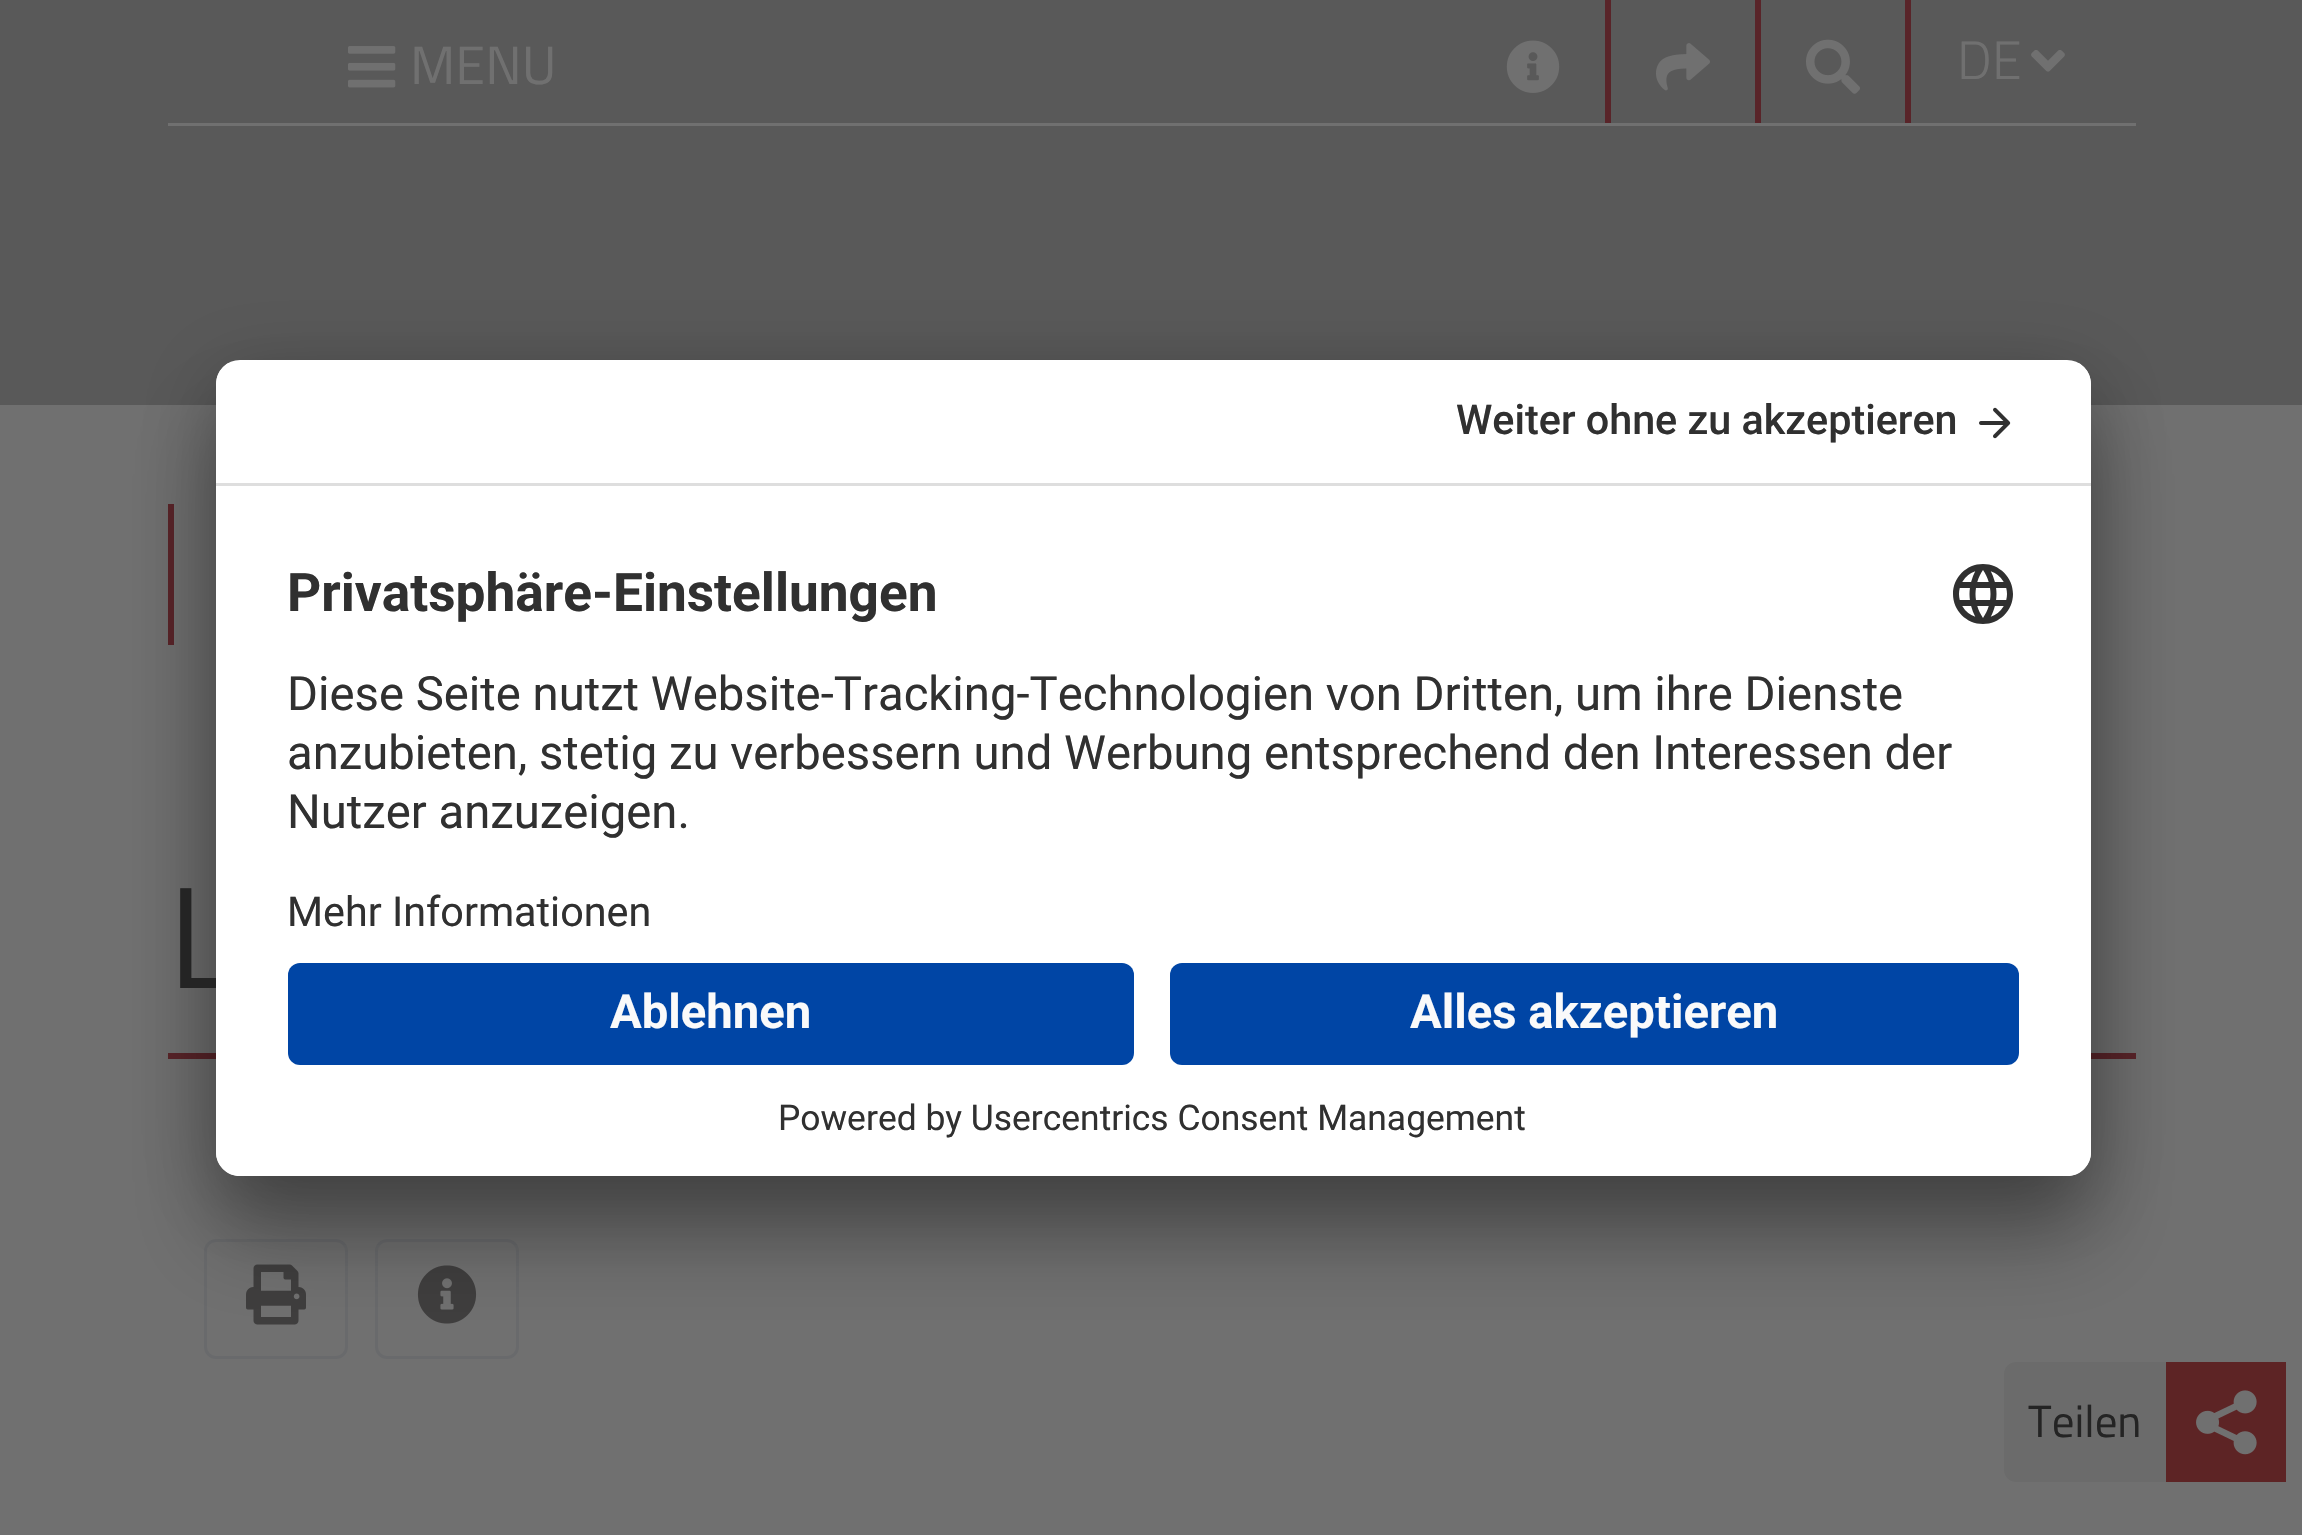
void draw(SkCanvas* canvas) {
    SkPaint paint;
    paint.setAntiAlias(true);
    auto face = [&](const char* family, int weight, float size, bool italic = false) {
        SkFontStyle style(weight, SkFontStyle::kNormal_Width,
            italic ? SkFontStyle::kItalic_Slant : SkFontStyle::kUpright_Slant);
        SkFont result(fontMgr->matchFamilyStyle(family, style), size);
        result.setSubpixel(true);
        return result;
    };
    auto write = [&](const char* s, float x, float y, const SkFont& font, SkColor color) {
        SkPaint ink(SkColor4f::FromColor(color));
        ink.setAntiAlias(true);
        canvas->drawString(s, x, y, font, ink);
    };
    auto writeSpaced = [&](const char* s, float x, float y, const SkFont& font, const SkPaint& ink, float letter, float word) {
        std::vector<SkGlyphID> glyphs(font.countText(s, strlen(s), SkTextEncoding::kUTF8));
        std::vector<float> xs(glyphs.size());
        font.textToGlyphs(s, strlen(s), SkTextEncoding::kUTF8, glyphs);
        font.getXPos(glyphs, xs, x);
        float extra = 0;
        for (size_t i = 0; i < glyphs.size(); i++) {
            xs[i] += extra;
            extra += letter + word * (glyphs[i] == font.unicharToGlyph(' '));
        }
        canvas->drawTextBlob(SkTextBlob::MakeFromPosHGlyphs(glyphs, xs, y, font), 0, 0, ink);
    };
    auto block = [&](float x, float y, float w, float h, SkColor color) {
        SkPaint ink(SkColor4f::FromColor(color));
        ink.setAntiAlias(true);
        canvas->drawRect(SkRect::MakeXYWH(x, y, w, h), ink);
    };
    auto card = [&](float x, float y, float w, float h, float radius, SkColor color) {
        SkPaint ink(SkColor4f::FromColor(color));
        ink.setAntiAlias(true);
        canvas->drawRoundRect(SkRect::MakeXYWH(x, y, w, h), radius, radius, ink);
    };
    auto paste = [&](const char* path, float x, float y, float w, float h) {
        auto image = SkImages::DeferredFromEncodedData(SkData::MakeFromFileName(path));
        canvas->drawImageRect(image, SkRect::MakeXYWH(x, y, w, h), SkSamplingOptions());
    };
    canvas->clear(SkColorSetRGB(112, 112, 112));
    block(0, 0, 2302, 405, SkColorSetRGB(89, 89, 89));
    paste("pic1.png", 348, 46, 48, 42);
    auto kFont1 = face("Titillium Web", 400, 54);
    write("MENU", 410, 84, kFont1, SkColorSetRGB(112, 112, 112));
    block(168, 123, 1968, 3, SkColorSetRGB(112, 112, 112));
    block(1605, 0, 6, 123, SkColorSetRGB(89, 36, 41));
    paste("pic2.png", 1506, 40, 54, 53);
    block(1755, 0, 6, 123, SkColorSetRGB(89, 36, 41));
    paste("pic3.png", 1656, 43, 54, 48);
    block(1905, 0, 6, 123, SkColorSetRGB(89, 36, 41));
    paste("pic4.png", 1806, 39, 54, 55);
    auto kFont2 = face("Titillium Web", 300, 54);
    write("DE", 1957, 79, kFont2, SkColorSetRGB(112, 112, 112));
    paste("pic5.png", 2031, 50, 34, 22);
    block(168, 504, 6, 141, SkColorSetRGB(89, 36, 41));
    block(168, 1053, 1968, 6, SkColorSetRGB(89, 36, 41));
    paint.setStyle(SkPaint::kStroke_Style);
    paint.setStrokeWidth(3);
    paint.setColor(SkColorSetRGB(105, 106, 108));
    canvas->drawRoundRect(SkRect::MakeXYWH(205.5f, 1240.5f, 141, 117), 10.5f, 10.5f, paint);
    paste("pic8.png", 246, 1264, 60, 61);
    canvas->drawRoundRect(SkRect::MakeXYWH(376.5f, 1240.5f, 141, 117), 10.5f, 10.5f, paint);
    paste("pic9.png", 417, 1265, 60, 59);
    paint.setStyle(SkPaint::kFill_Style);
    paint.setColor(SkColorSetRGB(107, 107, 107));
    canvas->drawPath(SkPathBuilder().moveTo(2016, 1362).lineTo(2286, 1362).lineTo(2286, 1482).lineTo(2016, 1482).cubicTo(2009.5f, 1482, 2004, 1476.5f, 2004, 1470).lineTo(2004, 1374).cubicTo(2004, 1367.5f, 2009.5f, 1362, 2016, 1362).close().detach(), paint);
    block(2166, 1362, 120, 120, SkColorSetRGB(93, 36, 37));
    paint.setColor(SkColorSetARGB(77, 0, 0, 0));
    paint.setMaskFilter(SkMaskFilter::MakeBlur(kNormal_SkBlurStyle, 42));
    canvas->drawRoundRect(SkRect::MakeXYWH(216, 420, 1875, 816), 24, 24, paint);
    paint.setMaskFilter(nullptr);
    paint.setColor(SkColorSetARGB(56, 0, 0, 0));
    paint.setMaskFilter(SkMaskFilter::MakeBlur(kNormal_SkBlurStyle, 39));
    canvas->drawRoundRect(SkRect::MakeXYWH(216, 375, 1875, 816), 24, 24, paint);
    paint.setMaskFilter(nullptr);
    auto kFont3 = face("Titillium Web", 400, 144);
    paint.setColor(SkColorSetRGB(36, 36, 36));
    writeSpaced("L", 168, 988, kFont3, paint, -4, 0);
    card(216, 360, 1875, 816, 24, SK_ColorWHITE);
    canvas->save();
    canvas->clipPath(SkPathBuilder().moveTo(240, 360).lineTo(2067, 360).cubicTo(2080.5f, 360, 2091, 370.5f, 2091, 384).lineTo(2091, 1152).cubicTo(2091, 1165.5f, 2080.5f, 1176, 2067, 1176).lineTo(240, 1176).cubicTo(226.5f, 1176, 216, 1165.5f, 216, 1152).lineTo(216, 384).cubicTo(216, 370.5f, 226.5f, 360, 240, 360).close().detach(), true);
    canvas->clipPath(SkPathBuilder().moveTo(240, 360).lineTo(2067, 360).cubicTo(2080.5f, 360, 2091, 370.5f, 2091, 384).lineTo(2091, 939).lineTo(216, 939).lineTo(216, 384).cubicTo(216, 370.5f, 226.5f, 360, 240, 360).close().detach(), true);
    block(216, 363, 1875, 120, SK_ColorWHITE);
    canvas->restore();
    block(216, 483, 1875, 3, SkColorSetRGB(222, 222, 222));
    auto kFont4 = face("Roboto", 500, 41.3f);
    write("Weiter ohne zu akzeptieren", 1456, 434, kFont4, SkColorSetRGB(48, 48, 48));
    paste("pic6.png", 1979, 407, 32, 32);
    auto kFont5 = face("Roboto", 700, 53.2f);
    write("Privatsphäre-Einstellungen", 287, 611, kFont5, SkColorSetRGB(48, 48, 48));
    paste("pic7.png", 1953, 564, 60, 60);
    auto kFont6 = face("Roboto", 400, 47.25f);
    write("Diese Seite nutzt Website-Tracking-Technologien von Dritten, um ihre Dienste", 287, 710, kFont6, SkColorSetRGB(48, 48, 48));
    write("anzubieten, stetig zu verbessern und Werbung entsprechend den Interessen der", 287, 769, kFont6, SkColorSetRGB(48, 48, 48));
    write("Nutzer anzuzeigen.", 287, 828, kFont6, SkColorSetRGB(48, 48, 48));
    auto kFont7 = face("Roboto", 400, 41.3f);
    write("Mehr Informationen", 287, 926, kFont7, SkColorSetRGB(48, 48, 48));
    paint.setColor(SK_ColorWHITE);
    canvas->drawPath(SkPathBuilder().moveTo(216, 939).lineTo(2091, 939).lineTo(2091, 1152).cubicTo(2091, 1165.5f, 2080.5f, 1176, 2067, 1176).lineTo(240, 1176).cubicTo(226.5f, 1176, 216, 1165.5f, 216, 1152).close().detach(), paint);
    card(288, 963, 846, 102, 12, SkColorSetRGB(0, 69, 165));
    auto kFont8 = face("Roboto", 700, 47.25f);
    write("Ablehnen", 610, 1028, kFont8, SkColorSetRGB(250, 250, 250));
    card(1170, 963, 849, 102, 12, SkColorSetRGB(0, 69, 165));
    write("Alles akzeptieren", 1410, 1028, kFont8, SkColorSetRGB(250, 250, 250));
    auto kFont9 = face("Roboto", 400, 35.4f);
    write("Powered by Usercentrics Consent Management", 778, 1130, kFont9, SkColorSetRGB(48, 48, 48));
    auto kFont10 = face("Titillium Web", 400, 45);
    write("Teilen", 2028, 1437, kFont10, SkColorSetRGB(36, 36, 36));
    paste("pic10.png", 2196, 1390, 61, 65);
}
